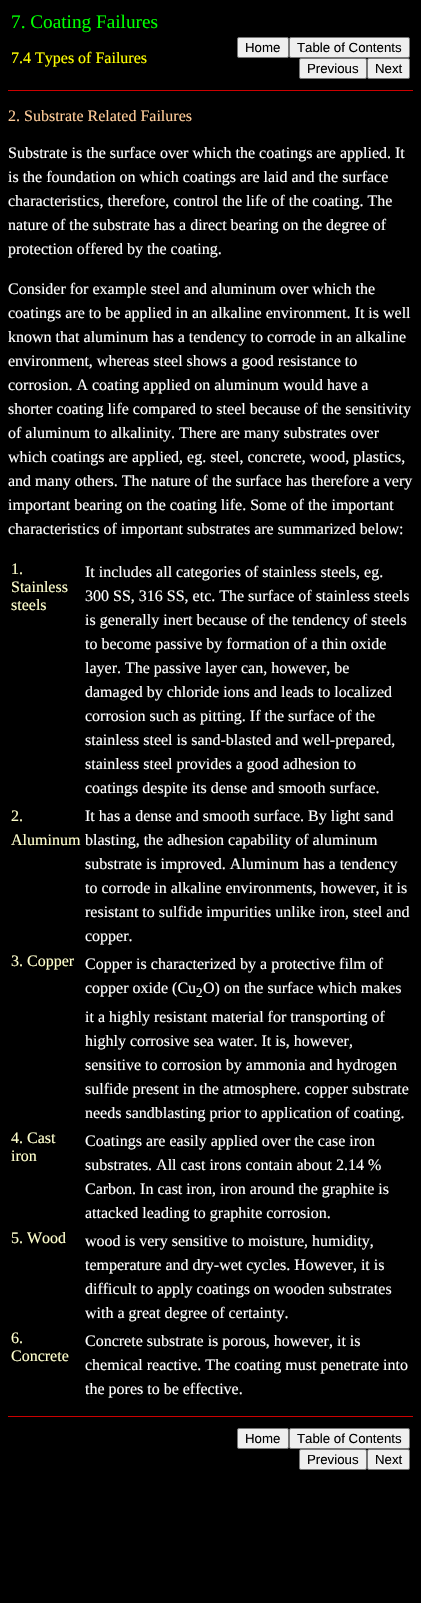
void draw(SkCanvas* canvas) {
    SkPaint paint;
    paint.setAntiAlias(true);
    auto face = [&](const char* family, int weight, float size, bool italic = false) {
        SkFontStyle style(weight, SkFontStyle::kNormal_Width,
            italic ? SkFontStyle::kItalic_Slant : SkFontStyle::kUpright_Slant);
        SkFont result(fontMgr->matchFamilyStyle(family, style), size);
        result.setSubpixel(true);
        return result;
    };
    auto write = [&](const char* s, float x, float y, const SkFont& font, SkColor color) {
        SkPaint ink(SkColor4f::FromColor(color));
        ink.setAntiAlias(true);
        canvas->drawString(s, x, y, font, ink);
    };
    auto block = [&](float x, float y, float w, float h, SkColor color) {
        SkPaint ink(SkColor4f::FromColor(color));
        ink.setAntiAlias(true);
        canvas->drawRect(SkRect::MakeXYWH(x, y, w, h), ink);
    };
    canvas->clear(SK_ColorBLACK);
    auto kFont1 = face("Liberation Serif", 400, 19.25f);
    write("7. Coating Failures", 11, 28, kFont1, SkColorSetRGB(0, 255, 0));
    auto kFont2 = face("Liberation Serif", 400, 16);
    write("7.4 Types of Failures", 11, 63, kFont2, SkColorSetRGB(255, 255, 0));
    paint.setColor(SkColorSetRGB(239, 239, 239));
    canvas->drawRoundRect(SkRect::MakeXYWH(237.5f, 37.5f, 51, 20), 1.5f, 1.5f, paint);
    paint.setStyle(SkPaint::kStroke_Style);
    paint.setStrokeWidth(1);
    paint.setColor(SkColorSetRGB(118, 118, 118));
    canvas->drawRoundRect(SkRect::MakeXYWH(237.5f, 37.5f, 51, 20), 1.5f, 1.5f, paint);
    auto kFont3 = face("Liberation Sans", 400, 13.25f);
    write("Home", 245, 52, kFont3, SK_ColorBLACK);
    paint.setStyle(SkPaint::kFill_Style);
    paint.setColor(SkColorSetRGB(239, 239, 239));
    canvas->drawRoundRect(SkRect::MakeXYWH(289.5f, 37.5f, 120, 20), 1.5f, 1.5f, paint);
    paint.setStyle(SkPaint::kStroke_Style);
    paint.setColor(SkColorSetRGB(118, 118, 118));
    canvas->drawRoundRect(SkRect::MakeXYWH(289.5f, 37.5f, 120, 20), 1.5f, 1.5f, paint);
    write("Table of Contents", 297, 52, kFont3, SK_ColorBLACK);
    paint.setStyle(SkPaint::kFill_Style);
    paint.setColor(SkColorSetRGB(239, 239, 239));
    canvas->drawRoundRect(SkRect::MakeXYWH(299.5f, 58.5f, 67, 20), 1.5f, 1.5f, paint);
    paint.setStyle(SkPaint::kStroke_Style);
    paint.setColor(SkColorSetRGB(118, 118, 118));
    canvas->drawRoundRect(SkRect::MakeXYWH(299.5f, 58.5f, 67, 20), 1.5f, 1.5f, paint);
    write("Previous", 307, 73, kFont3, SK_ColorBLACK);
    paint.setStyle(SkPaint::kFill_Style);
    paint.setColor(SkColorSetRGB(239, 239, 239));
    canvas->drawRoundRect(SkRect::MakeXYWH(367.5f, 58.5f, 42, 20), 1.5f, 1.5f, paint);
    paint.setStyle(SkPaint::kStroke_Style);
    paint.setColor(SkColorSetRGB(118, 118, 118));
    canvas->drawRoundRect(SkRect::MakeXYWH(367.5f, 58.5f, 42, 20), 1.5f, 1.5f, paint);
    write("Next", 375, 73, kFont3, SK_ColorBLACK);
    block(8, 90, 405, 1, SkColorSetRGB(204, 0, 0));
    write("2. Substrate Related Failures", 8, 121, kFont2, SkColorSetRGB(255, 204, 153));
    write("Substrate is the surface over which the coatings are applied. It", 8, 158, kFont2, SK_ColorWHITE);
    write("is the foundation on which coatings are laid and the surface", 8, 182, kFont2, SK_ColorWHITE);
    write("characteristics, therefore, control the life of the coating. The", 8, 206, kFont2, SK_ColorWHITE);
    write("nature of the substrate has a direct bearing on the degree of", 8, 230, kFont2, SK_ColorWHITE);
    write("protection offered by the coating.", 8, 254, kFont2, SK_ColorWHITE);
    write("Consider for example steel and aluminum over which the", 8, 294, kFont2, SK_ColorWHITE);
    write("coatings are to be applied in an alkaline environment. It is well", 8, 318, kFont2, SK_ColorWHITE);
    write("known that aluminum has a tendency to corrode in an alkaline", 8, 342, kFont2, SK_ColorWHITE);
    write("environment, whereas steel shows a good resistance to", 8, 366, kFont2, SK_ColorWHITE);
    write("corrosion. A coating applied on aluminum would have a", 8, 390, kFont2, SK_ColorWHITE);
    write("shorter coating life compared to steel because of the sensitivity", 8, 414, kFont2, SK_ColorWHITE);
    write("of aluminum to alkalinity. There are many substrates over", 8, 438, kFont2, SK_ColorWHITE);
    write("which coatings are applied, eg. steel, concrete, wood, plastics,", 8, 462, kFont2, SK_ColorWHITE);
    write("and many others. The nature of the surface has therefore a very", 8, 486, kFont2, SK_ColorWHITE);
    write("important bearing on the coating life. Some of the important", 8, 510, kFont2, SK_ColorWHITE);
    write("characteristics of important substrates are summarized below:", 8, 534, kFont2, SK_ColorWHITE);
    write("1.", 11, 574, kFont2, SkColorSetRGB(255, 255, 204));
    write("Stainless", 11, 592, kFont2, SkColorSetRGB(255, 255, 204));
    write("steels", 11, 610, kFont2, SkColorSetRGB(255, 255, 204));
    write("It includes all categories of stainless steels, eg.", 85, 577, kFont2, SK_ColorWHITE);
    write("300 SS, 316 SS, etc. The surface of stainless steels", 85, 601, kFont2, SK_ColorWHITE);
    write("is generally inert because of the tendency of steels", 85, 625, kFont2, SK_ColorWHITE);
    write("to become passive by formation of a thin oxide", 85, 649, kFont2, SK_ColorWHITE);
    write("layer. The passive layer can, however, be", 85, 673, kFont2, SK_ColorWHITE);
    write("damaged by chloride ions and leads to localized", 85, 697, kFont2, SK_ColorWHITE);
    write("corrosion such as pitting. If the surface of the", 85, 721, kFont2, SK_ColorWHITE);
    write("stainless steel is sand-blasted and well-prepared,", 85, 745, kFont2, SK_ColorWHITE);
    write("stainless steel provides a good adhesion to", 85, 769, kFont2, SK_ColorWHITE);
    write("coatings despite its dense and smooth surface.", 85, 793, kFont2, SK_ColorWHITE);
    write("2.", 11, 821, kFont2, SkColorSetRGB(255, 255, 204));
    write("Aluminum", 11, 845, kFont2, SkColorSetRGB(255, 255, 204));
    write("It has a dense and smooth surface. By light sand", 85, 821, kFont2, SK_ColorWHITE);
    write("blasting, the adhesion capability of aluminum", 85, 845, kFont2, SK_ColorWHITE);
    write("substrate is improved. Aluminum has a tendency", 85, 869, kFont2, SK_ColorWHITE);
    write("to corrode in alkaline environments, however, it is", 85, 893, kFont2, SK_ColorWHITE);
    write("resistant to sulfide impurities unlike iron, steel and", 85, 917, kFont2, SK_ColorWHITE);
    write("copper.", 85, 941, kFont2, SK_ColorWHITE);
    write("3. Copper", 11, 966, kFont2, SkColorSetRGB(255, 255, 204));
    write("Copper is characterized by a protective film of", 85, 969, kFont2, SK_ColorWHITE);
    write("copper oxide (Cu", 85, 993, kFont2, SK_ColorWHITE);
    auto kFont4 = face("Liberation Serif", 400, 13.25f);
    write("2", 196, 997, kFont4, SK_ColorWHITE);
    write("O) on the surface which makes", 203, 993, kFont2, SK_ColorWHITE);
    write("it a highly resistant material for transporting of", 85, 1022, kFont2, SK_ColorWHITE);
    write("highly corrosive sea water. It is, however,", 85, 1046, kFont2, SK_ColorWHITE);
    write("sensitive to corrosion by ammonia and hydrogen", 85, 1070, kFont2, SK_ColorWHITE);
    write("sulfide present in the atmosphere. copper substrate", 85, 1094, kFont2, SK_ColorWHITE);
    write("needs sandblasting prior to application of coating.", 85, 1118, kFont2, SK_ColorWHITE);
    write("4. Cast", 11, 1143, kFont2, SkColorSetRGB(255, 255, 204));
    write("iron", 11, 1161, kFont2, SkColorSetRGB(255, 255, 204));
    write("Coatings are easily applied over the case iron", 85, 1146, kFont2, SK_ColorWHITE);
    write("substrates. All cast irons contain about 2.14 %", 85, 1170, kFont2, SK_ColorWHITE);
    write("Carbon. In cast iron, iron around the graphite is", 85, 1194, kFont2, SK_ColorWHITE);
    write("attacked leading to graphite corrosion.", 85, 1218, kFont2, SK_ColorWHITE);
    write("5. Wood", 11, 1243, kFont2, SkColorSetRGB(255, 255, 204));
    write("wood is very sensitive to moisture, humidity,", 85, 1246, kFont2, SK_ColorWHITE);
    write("temperature and dry-wet cycles. However, it is", 85, 1270, kFont2, SK_ColorWHITE);
    write("difficult to apply coatings on wooden substrates", 85, 1294, kFont2, SK_ColorWHITE);
    write("with a great degree of certainty.", 85, 1318, kFont2, SK_ColorWHITE);
    write("6.", 11, 1343, kFont2, SkColorSetRGB(255, 255, 204));
    write("Concrete", 11, 1361, kFont2, SkColorSetRGB(255, 255, 204));
    write("Concrete substrate is porous, however, it is", 85, 1346, kFont2, SK_ColorWHITE);
    write("chemical reactive. The coating must penetrate into", 85, 1370, kFont2, SK_ColorWHITE);
    write("the pores to be effective.", 85, 1394, kFont2, SK_ColorWHITE);
    block(8, 1416, 405, 1, SkColorSetRGB(204, 0, 0));
    paint.setStyle(SkPaint::kFill_Style);
    paint.setColor(SkColorSetRGB(239, 239, 239));
    canvas->drawRoundRect(SkRect::MakeXYWH(237.5f, 1428.5f, 51, 20), 1.5f, 1.5f, paint);
    paint.setStyle(SkPaint::kStroke_Style);
    paint.setColor(SkColorSetRGB(118, 118, 118));
    canvas->drawRoundRect(SkRect::MakeXYWH(237.5f, 1428.5f, 51, 20), 1.5f, 1.5f, paint);
    write("Home", 245, 1443, kFont3, SK_ColorBLACK);
    paint.setStyle(SkPaint::kFill_Style);
    paint.setColor(SkColorSetRGB(239, 239, 239));
    canvas->drawRoundRect(SkRect::MakeXYWH(289.5f, 1428.5f, 120, 20), 1.5f, 1.5f, paint);
    paint.setStyle(SkPaint::kStroke_Style);
    paint.setColor(SkColorSetRGB(118, 118, 118));
    canvas->drawRoundRect(SkRect::MakeXYWH(289.5f, 1428.5f, 120, 20), 1.5f, 1.5f, paint);
    write("Table of Contents", 297, 1443, kFont3, SK_ColorBLACK);
    paint.setStyle(SkPaint::kFill_Style);
    paint.setColor(SkColorSetRGB(239, 239, 239));
    canvas->drawRoundRect(SkRect::MakeXYWH(299.5f, 1449.5f, 67, 20), 1.5f, 1.5f, paint);
    paint.setStyle(SkPaint::kStroke_Style);
    paint.setColor(SkColorSetRGB(118, 118, 118));
    canvas->drawRoundRect(SkRect::MakeXYWH(299.5f, 1449.5f, 67, 20), 1.5f, 1.5f, paint);
    write("Previous", 307, 1464, kFont3, SK_ColorBLACK);
    paint.setStyle(SkPaint::kFill_Style);
    paint.setColor(SkColorSetRGB(239, 239, 239));
    canvas->drawRoundRect(SkRect::MakeXYWH(367.5f, 1449.5f, 42, 20), 1.5f, 1.5f, paint);
    paint.setStyle(SkPaint::kStroke_Style);
    paint.setColor(SkColorSetRGB(118, 118, 118));
    canvas->drawRoundRect(SkRect::MakeXYWH(367.5f, 1449.5f, 42, 20), 1.5f, 1.5f, paint);
    write("Next", 375, 1464, kFont3, SK_ColorBLACK);
}
